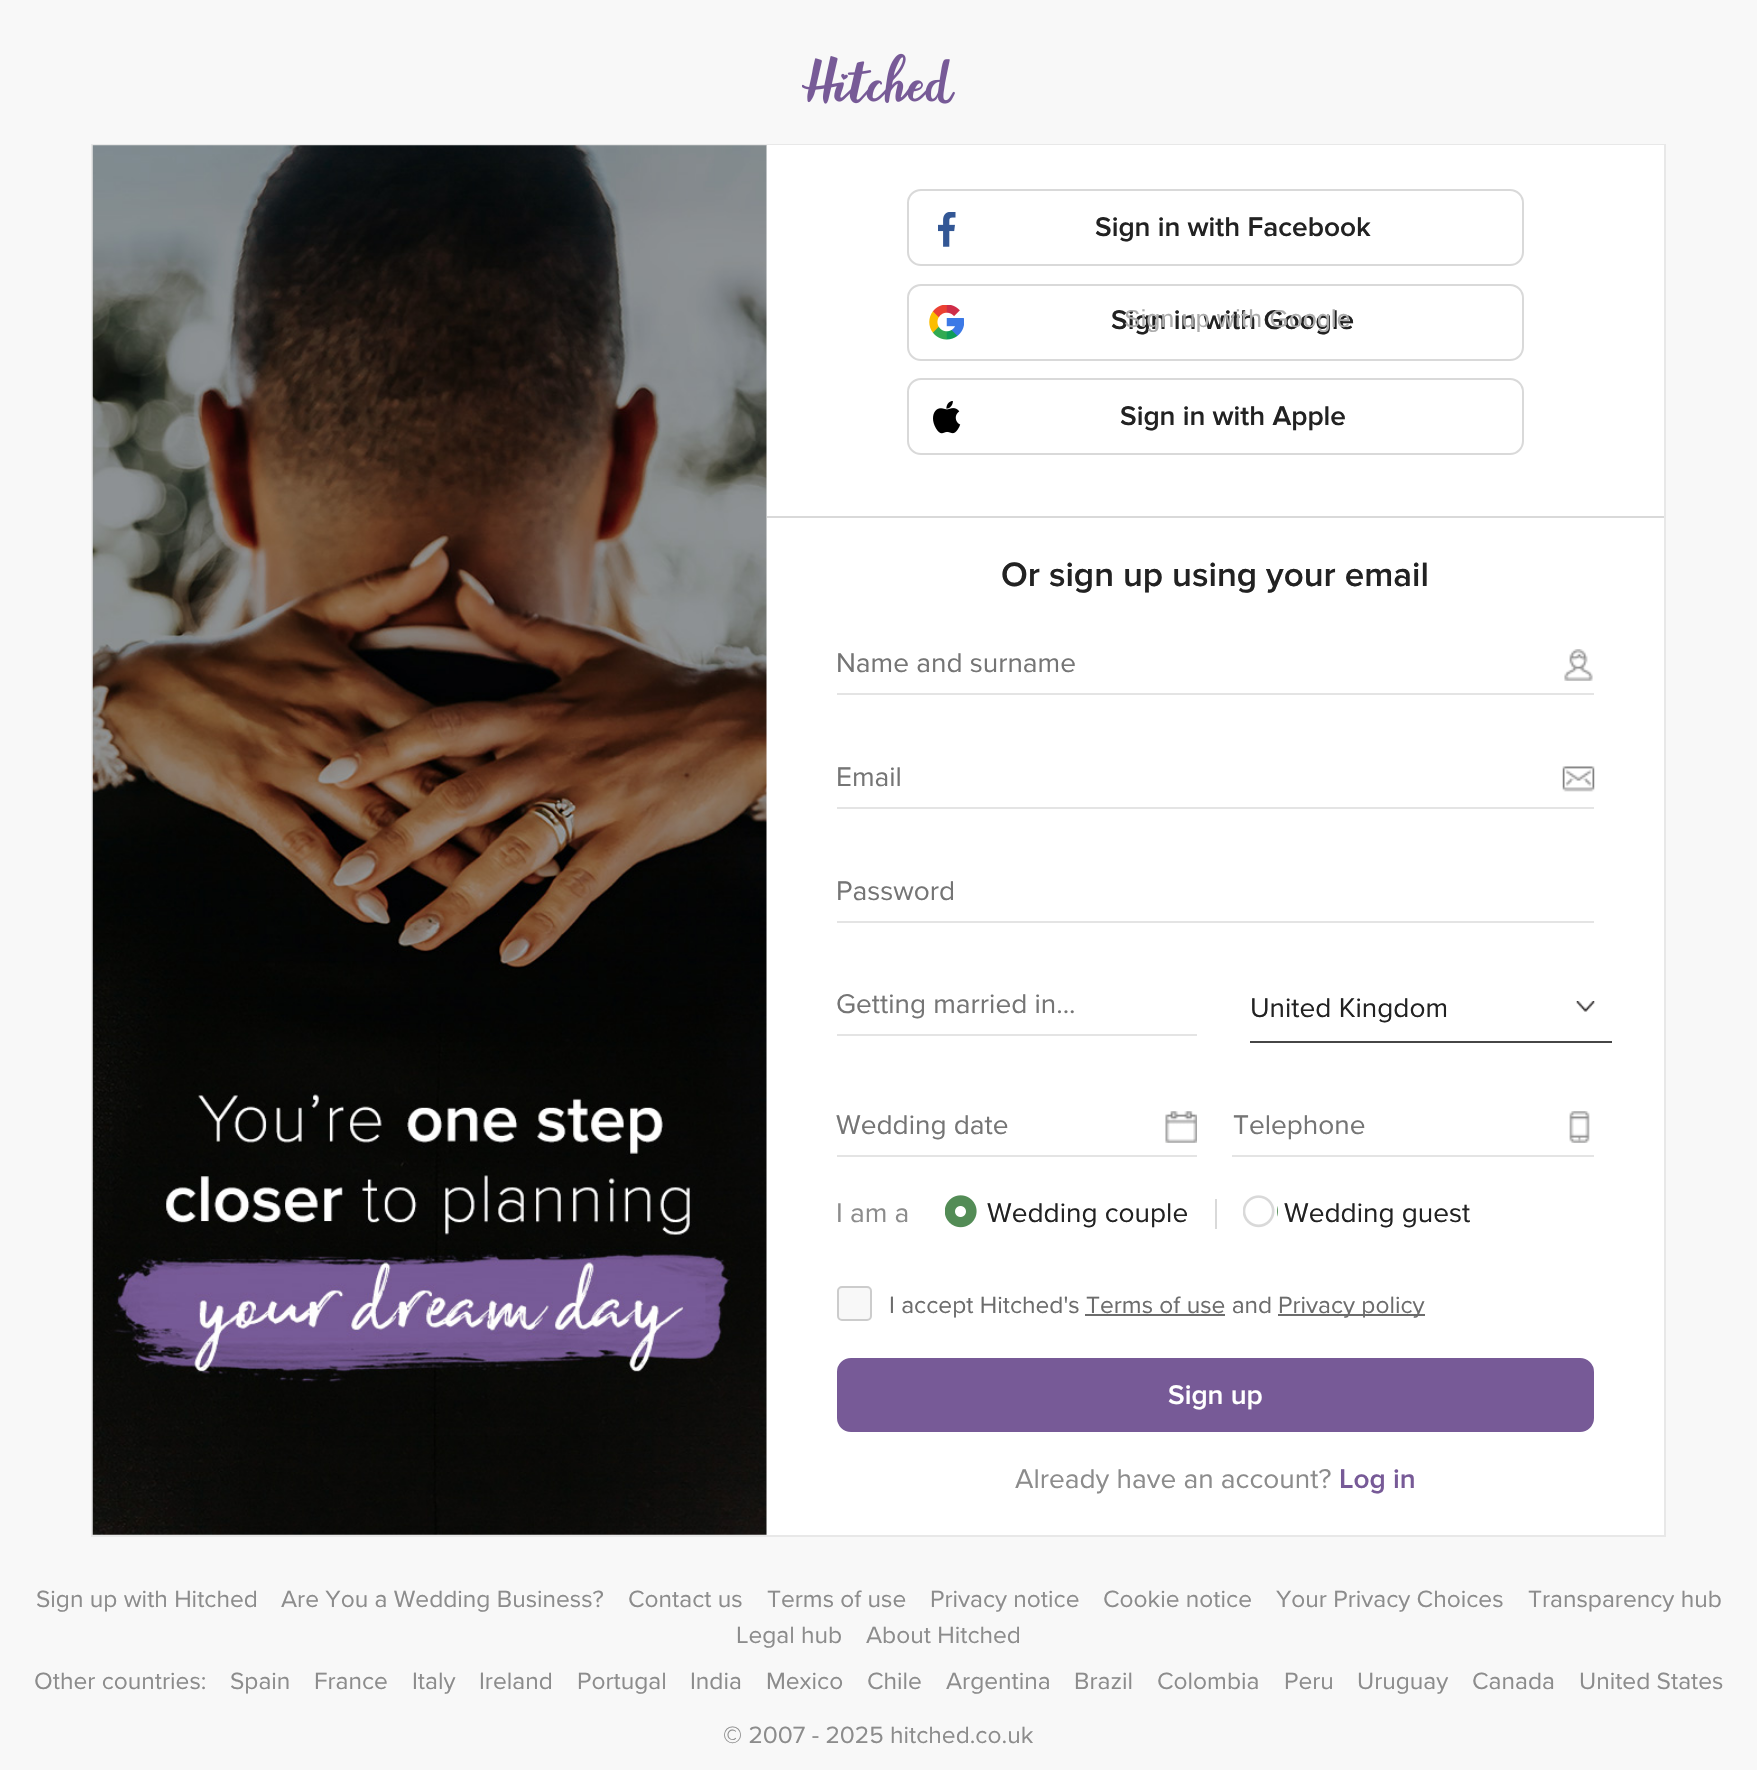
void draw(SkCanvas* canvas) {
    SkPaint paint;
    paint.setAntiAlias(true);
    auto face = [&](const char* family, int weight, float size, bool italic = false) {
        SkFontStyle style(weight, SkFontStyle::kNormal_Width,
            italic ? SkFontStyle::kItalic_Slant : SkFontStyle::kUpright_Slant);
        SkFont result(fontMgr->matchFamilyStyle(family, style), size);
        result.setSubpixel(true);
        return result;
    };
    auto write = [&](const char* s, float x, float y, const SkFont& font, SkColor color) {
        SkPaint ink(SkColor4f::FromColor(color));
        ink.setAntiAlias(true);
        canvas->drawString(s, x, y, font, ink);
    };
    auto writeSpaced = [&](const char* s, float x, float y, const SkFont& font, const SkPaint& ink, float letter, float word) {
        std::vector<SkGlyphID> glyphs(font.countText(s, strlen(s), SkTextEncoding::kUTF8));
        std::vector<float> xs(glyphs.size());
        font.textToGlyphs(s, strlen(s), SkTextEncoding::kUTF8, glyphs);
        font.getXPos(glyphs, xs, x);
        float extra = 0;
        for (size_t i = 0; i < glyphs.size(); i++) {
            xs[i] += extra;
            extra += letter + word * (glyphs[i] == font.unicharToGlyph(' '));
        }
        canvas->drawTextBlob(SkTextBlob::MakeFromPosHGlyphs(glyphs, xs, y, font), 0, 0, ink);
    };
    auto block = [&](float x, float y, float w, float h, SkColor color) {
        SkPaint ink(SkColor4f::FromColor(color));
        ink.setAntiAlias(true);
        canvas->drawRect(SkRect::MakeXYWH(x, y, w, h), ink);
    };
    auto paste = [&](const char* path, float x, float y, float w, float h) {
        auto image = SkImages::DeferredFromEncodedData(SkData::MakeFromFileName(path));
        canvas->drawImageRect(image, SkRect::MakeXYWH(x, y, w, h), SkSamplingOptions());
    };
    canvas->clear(SkColorSetRGB(248, 248, 248));
    paste("pic1.png", 802, 53, 153, 51);
    paint.setStyle(SkPaint::kStroke_Style);
    paint.setStrokeWidth(2);
    paint.setColor(SkColorSetRGB(232, 232, 232));
    canvas->drawRect(SkRect::MakeXYWH(92, 145, 1573, 1391), paint);
    paste("pic2.png", 92, 145, 675, 1390);
    block(767, 145, 897, 1390, SK_ColorWHITE);
    block(767, 516, 897, 2, SkColorSetRGB(217, 217, 217));
    paint.setColor(SkColorSetRGB(217, 217, 217));
    canvas->drawRoundRect(SkRect::MakeXYWH(908, 190, 615, 75), 13, 13, paint);
    paste("pic3.png", 938, 212, 18, 35);
    auto kFont1 = face("Proxima Nova", 600, 28);
    write("Sign in with Facebook", 1095, 236, kFont1, SkColorSetRGB(34, 34, 34));
    canvas->drawRoundRect(SkRect::MakeXYWH(908, 285, 615, 75), 13, 13, paint);
    write("Sign in with Google", 1111, 329, kFont1, SkColorSetRGB(34, 34, 34));
    auto kFont2 = face("Liberation Sans", 400, 24.5f);
    paint.setStyle(SkPaint::kFill_Style);
    paint.setColor(SkColorSetRGB(173, 173, 173));
    writeSpaced("Sign up with Google", 1124, 327, kFont2, paint, 0.4f, 0);
    paste("pic4.png", 929, 305, 35, 35);
    paint.setStyle(SkPaint::kStroke_Style);
    paint.setColor(SkColorSetRGB(217, 217, 217));
    canvas->drawRoundRect(SkRect::MakeXYWH(908, 379, 615, 75), 13, 13, paint);
    paste("pic5.png", 933, 401, 28, 33);
    write("Sign in with Apple", 1120, 425, kFont1, SkColorSetRGB(34, 34, 34));
    auto kFont3 = face("Proxima Nova", 600, 35);
    write("Or sign up using your email", 1001, 586, kFont3, SkColorSetRGB(34, 34, 34));
    auto kFont4 = face("Proxima Nova", 400, 28);
    write("Name and surname", 836, 672, kFont4, SkColorSetRGB(117, 117, 117));
    paste("pic6.png", 1564, 649, 29, 32);
    block(837, 693, 757, 2, SkColorSetRGB(228, 228, 228));
    write("Email", 836, 786, kFont4, SkColorSetRGB(117, 117, 117));
    paste("pic7.png", 1562, 766, 33, 26);
    block(837, 807, 757, 2, SkColorSetRGB(228, 228, 228));
    write("Password", 836, 900, kFont4, SkColorSetRGB(117, 117, 117));
    block(837, 921, 757, 2, SkColorSetRGB(228, 228, 228));
    write("Getting married in...", 836, 1013, kFont4, SkColorSetRGB(117, 117, 117));
    block(837, 1034, 360, 2, SkColorSetRGB(228, 228, 228));
    paste("pic8.png", 1576, 1001, 19, 11);
    write("United Kingdom", 1250, 1017, kFont4, SkColorSetRGB(34, 34, 34));
    block(1250, 1041, 362, 2, SkColorSetRGB(70, 70, 70));
    write("Wedding date", 836, 1134, kFont4, SkColorSetRGB(117, 117, 117));
    paste("pic9.png", 1165, 1111, 32, 32);
    block(837, 1155, 360, 2, SkColorSetRGB(228, 228, 228));
    write("Telephone", 1233, 1134, kFont4, SkColorSetRGB(117, 117, 117));
    paste("pic10.png", 1569, 1111, 21, 32);
    block(1232, 1155, 362, 2, SkColorSetRGB(228, 228, 228));
    write("I am a", 836, 1222, kFont4, SkColorSetRGB(140, 140, 140));
    paste("pic11.png", 945, 1195, 32, 33);
    write("Wedding couple", 987, 1222, kFont4, SkColorSetRGB(34, 34, 34));
    block(1215, 1199, 2, 30, SkColorSetRGB(217, 217, 217));
    paste("pic12.png", 1243, 1195, 35, 33);
    write("Wedding guest", 1284, 1222, kFont4, SkColorSetRGB(34, 34, 34));
    paint.setStyle(SkPaint::kFill_Style);
    paint.setColor(SkColorSetRGB(248, 248, 248));
    canvas->drawRoundRect(SkRect::MakeXYWH(838, 1287, 33, 33), 4, 4, paint);
    paint.setStyle(SkPaint::kStroke_Style);
    paint.setColor(SkColorSetRGB(204, 204, 204));
    canvas->drawRoundRect(SkRect::MakeXYWH(838, 1287, 33, 33), 4, 4, paint);
    auto kFont5 = face("Proxima Nova", 400, 24.5f);
    write("I accept Hitched's Terms of use and", 889, 1313, kFont5, SkColorSetRGB(108, 108, 108));
    block(1278, 1314, 147, 2, SkColorSetRGB(108, 108, 108));
    write("Privacy policy", 1278, 1313, kFont5, SkColorSetRGB(108, 108, 108));
    block(1085, 1314, 140, 2, SkColorSetRGB(108, 108, 108));
    paint.setStyle(SkPaint::kFill_Style);
    paint.setColor(SkColorSetRGB(119, 90, 151));
    canvas->drawRoundRect(SkRect::MakeXYWH(838, 1359, 755, 72), 13, 13, paint);
    paint.setStyle(SkPaint::kStroke_Style);
    canvas->drawRoundRect(SkRect::MakeXYWH(838, 1359, 755, 72), 13, 13, paint);
    write("Sign up", 1168, 1404, kFont1, SK_ColorWHITE);
    write("Already have an account?", 1015, 1488, kFont4, SkColorSetRGB(140, 140, 140));
    write("Log in", 1339, 1488, kFont1, SkColorSetRGB(119, 90, 151));
    write("Sign up with Hitched", 36, 1607, kFont5, SkColorSetRGB(140, 140, 140));
    write("Are You a Wedding Business?", 281, 1607, kFont5, SkColorSetRGB(140, 140, 140));
    write("Contact us", 628, 1607, kFont5, SkColorSetRGB(140, 140, 140));
    write("Terms of use", 767, 1607, kFont5, SkColorSetRGB(140, 140, 140));
    write("Privacy notice", 930, 1607, kFont5, SkColorSetRGB(140, 140, 140));
    write("Cookie notice", 1103, 1607, kFont5, SkColorSetRGB(140, 140, 140));
    write("Your Privacy Choices", 1276, 1607, kFont5, SkColorSetRGB(140, 140, 140));
    write("Transparency hub", 1528, 1607, kFont5, SkColorSetRGB(140, 140, 140));
    write("Legal hub", 736, 1643, kFont5, SkColorSetRGB(140, 140, 140));
    write("About Hitched", 866, 1643, kFont5, SkColorSetRGB(140, 140, 140));
    write("Other countries:", 34, 1689, kFont5, SkColorSetRGB(140, 140, 140));
    write("Spain", 230, 1689, kFont5, SkColorSetRGB(140, 140, 140));
    write("France", 314, 1689, kFont5, SkColorSetRGB(140, 140, 140));
    write("Italy", 412, 1689, kFont5, SkColorSetRGB(140, 140, 140));
    write("Ireland", 479, 1689, kFont5, SkColorSetRGB(140, 140, 140));
    write("Portugal", 577, 1689, kFont5, SkColorSetRGB(140, 140, 140));
    write("India", 690, 1689, kFont5, SkColorSetRGB(140, 140, 140));
    write("Mexico", 766, 1689, kFont5, SkColorSetRGB(140, 140, 140));
    write("Chile", 867, 1689, kFont5, SkColorSetRGB(140, 140, 140));
    write("Argentina", 946, 1689, kFont5, SkColorSetRGB(140, 140, 140));
    write("Brazil", 1074, 1689, kFont5, SkColorSetRGB(140, 140, 140));
    write("Colombia", 1157, 1689, kFont5, SkColorSetRGB(140, 140, 140));
    write("Peru", 1284, 1689, kFont5, SkColorSetRGB(140, 140, 140));
    write("Uruguay", 1357, 1689, kFont5, SkColorSetRGB(140, 140, 140));
    write("Canada", 1472, 1689, kFont5, SkColorSetRGB(140, 140, 140));
    write("United States", 1579, 1689, kFont5, SkColorSetRGB(140, 140, 140));
    write("© 2007 - 2025 hitched.co.uk", 723, 1743, kFont5, SkColorSetRGB(140, 140, 140));
}
